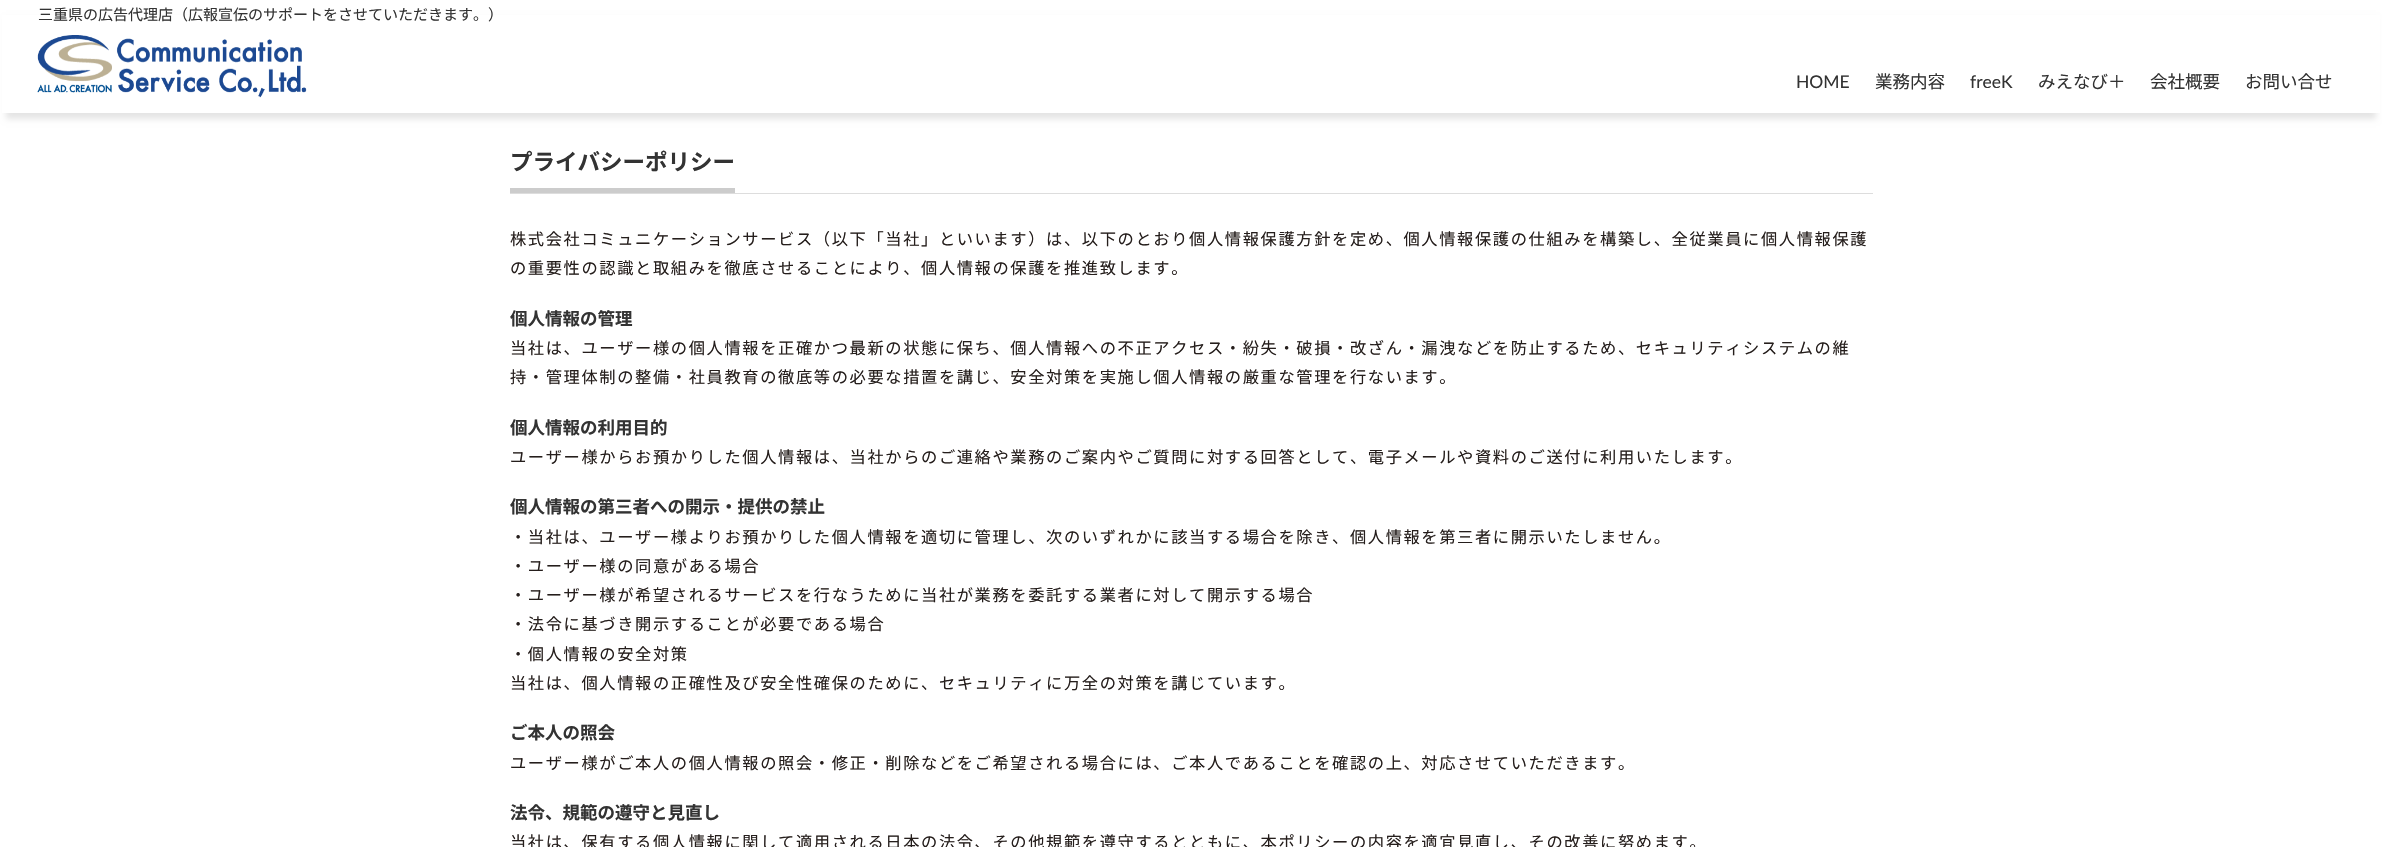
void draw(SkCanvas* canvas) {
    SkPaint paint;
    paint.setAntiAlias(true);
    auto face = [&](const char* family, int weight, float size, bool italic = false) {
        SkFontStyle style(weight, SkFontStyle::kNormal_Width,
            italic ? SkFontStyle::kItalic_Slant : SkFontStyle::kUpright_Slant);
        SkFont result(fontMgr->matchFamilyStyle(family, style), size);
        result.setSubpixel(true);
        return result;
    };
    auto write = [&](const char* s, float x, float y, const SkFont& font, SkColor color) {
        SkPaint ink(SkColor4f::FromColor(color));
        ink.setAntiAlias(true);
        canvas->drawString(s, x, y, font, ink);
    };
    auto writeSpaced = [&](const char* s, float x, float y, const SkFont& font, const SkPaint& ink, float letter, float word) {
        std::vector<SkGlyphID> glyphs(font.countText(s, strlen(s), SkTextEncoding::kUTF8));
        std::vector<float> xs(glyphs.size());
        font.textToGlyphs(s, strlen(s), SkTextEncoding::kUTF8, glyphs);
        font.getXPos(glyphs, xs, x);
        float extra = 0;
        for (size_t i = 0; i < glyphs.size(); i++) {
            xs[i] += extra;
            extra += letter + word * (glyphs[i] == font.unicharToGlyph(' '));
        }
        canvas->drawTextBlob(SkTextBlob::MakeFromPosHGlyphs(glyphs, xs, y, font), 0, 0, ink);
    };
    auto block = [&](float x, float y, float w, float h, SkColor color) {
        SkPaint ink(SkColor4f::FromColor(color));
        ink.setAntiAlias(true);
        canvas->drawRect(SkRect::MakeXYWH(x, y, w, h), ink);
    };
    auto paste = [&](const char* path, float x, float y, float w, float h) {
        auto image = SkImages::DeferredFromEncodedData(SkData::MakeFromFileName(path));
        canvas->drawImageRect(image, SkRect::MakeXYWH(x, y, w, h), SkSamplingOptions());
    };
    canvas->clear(SK_ColorWHITE);
    paint.setColor(SkColorSetARGB(26, 0, 0, 0));
    paint.setMaskFilter(SkMaskFilter::MakeBlur(kNormal_SkBlurStyle, 3));
    canvas->drawRect(SkRect::MakeXYWH(6, 19, 2370, 100), paint);
    paint.setMaskFilter(nullptr);
    block(2, 15, 2378, 98, SK_ColorWHITE);
    auto kFont1 = face("Noto Sans JP", 400, 15);
    write("三重県の広告代理店（広報宣伝のサポートをさせていただきます。）", 38, 20, kFont1, SkColorSetRGB(51, 51, 51));
    paste("pic1.png", 37, 35, 270, 63);
    auto kFont2 = face("Lato", 400, 17.5f);
    write("HOME", 1796, 88, kFont2, SkColorSetRGB(51, 51, 51));
    auto kFont3 = face("Noto Sans JP", 400, 17.5f);
    write("業務内容", 1875, 88, kFont3, SkColorSetRGB(51, 51, 51));
    write("freeK", 1970, 88, kFont2, SkColorSetRGB(51, 51, 51));
    write("みえなび＋", 2038, 88, kFont3, SkColorSetRGB(51, 51, 51));
    write("会社概要", 2150, 88, kFont3, SkColorSetRGB(51, 51, 51));
    write("お問い合せ", 2245, 88, kFont3, SkColorSetRGB(51, 51, 51));
    block(510, 193, 1363, 1, SkColorSetRGB(221, 221, 221));
    block(510, 188, 225, 5, SkColorSetRGB(204, 204, 204));
    auto kFont4 = face("Noto Sans JP", 700, 22.5f);
    write("プライバシーポリシー", 510, 170, kFont4, SkColorSetRGB(51, 51, 51));
    auto kFont5 = face("Noto Sans JP", 400, 16.25f);
    paint.setColor(SkColorSetRGB(37, 30, 28));
    writeSpaced("株式会社コミュニケーションサービス（以下「当社」といいます）は、以下のとおり個人情報保護方針を定め、個人情報保護の仕組みを構築し、全従業員に個人情報保護", 510, 245, kFont5, paint, 1.62f, 0);
    writeSpaced("の重要性の認識と取組みを徹底させることにより、個人情報の保護を推進致します。", 510, 274, kFont5, paint, 1.62f, 0);
    auto kFont6 = face("Noto Sans JP", 700, 17.5f);
    write("個人情報の管理", 510, 325, kFont6, SkColorSetRGB(51, 51, 51));
    writeSpaced("当社は、ユーザー様の個人情報を正確かつ最新の状態に保ち、個人情報への不正アクセス・紛失・破損・改ざん・漏洩などを防止するため、セキュリティシステムの維", 510, 354, kFont5, paint, 1.62f, 0);
    writeSpaced("持・管理体制の整備・社員教育の徹底等の必要な措置を講じ、安全対策を実施し個人情報の厳重な管理を行ないます。", 510, 383, kFont5, paint, 1.62f, 0);
    write("個人情報の利用目的", 510, 434, kFont6, SkColorSetRGB(51, 51, 51));
    writeSpaced("ユーザー様からお預かりした個人情報は、当社からのご連絡や業務のご案内やご質問に対する回答として、電子メールや資料のご送付に利用いたします。", 510, 463, kFont5, paint, 1.62f, 0);
    write("個人情報の第三者への開示・提供の禁止", 510, 513, kFont6, SkColorSetRGB(51, 51, 51));
    writeSpaced("・当社は、ユーザー様よりお預かりした個人情報を適切に管理し、次のいずれかに該当する場合を除き、個人情報を第三者に開示いたしません。", 510, 543, kFont5, paint, 1.62f, 0);
    writeSpaced("・ユーザー様の同意がある場合", 510, 572, kFont5, paint, 1.62f, 0);
    writeSpaced("・ユーザー様が希望されるサービスを行なうために当社が業務を委託する業者に対して開示する場合", 510, 601, kFont5, paint, 1.62f, 0);
    writeSpaced("・法令に基づき開示することが必要である場合", 510, 630, kFont5, paint, 1.62f, 0);
    writeSpaced("・個人情報の安全対策", 510, 660, kFont5, paint, 1.62f, 0);
    writeSpaced("当社は、個人情報の正確性及び安全性確保のために、セキュリティに万全の対策を講じています。", 510, 689, kFont5, paint, 1.62f, 0);
    write("ご本人の照会", 510, 739, kFont6, SkColorSetRGB(51, 51, 51));
    writeSpaced("ユーザー様がご本人の個人情報の照会・修正・削除などをご希望される場合には、ご本人であることを確認の上、対応させていただきます。", 510, 769, kFont5, paint, 1.62f, 0);
    write("法令、規範の遵守と見直し", 510, 819, kFont6, SkColorSetRGB(51, 51, 51));
    writeSpaced("当社は、保有する個人情報に関して適用される日本の法令、その他規範を遵守するとともに、本ポリシーの内容を適宜見直し、その改善に努めます。", 510, 848, kFont5, paint, 1.62f, 0);
}
